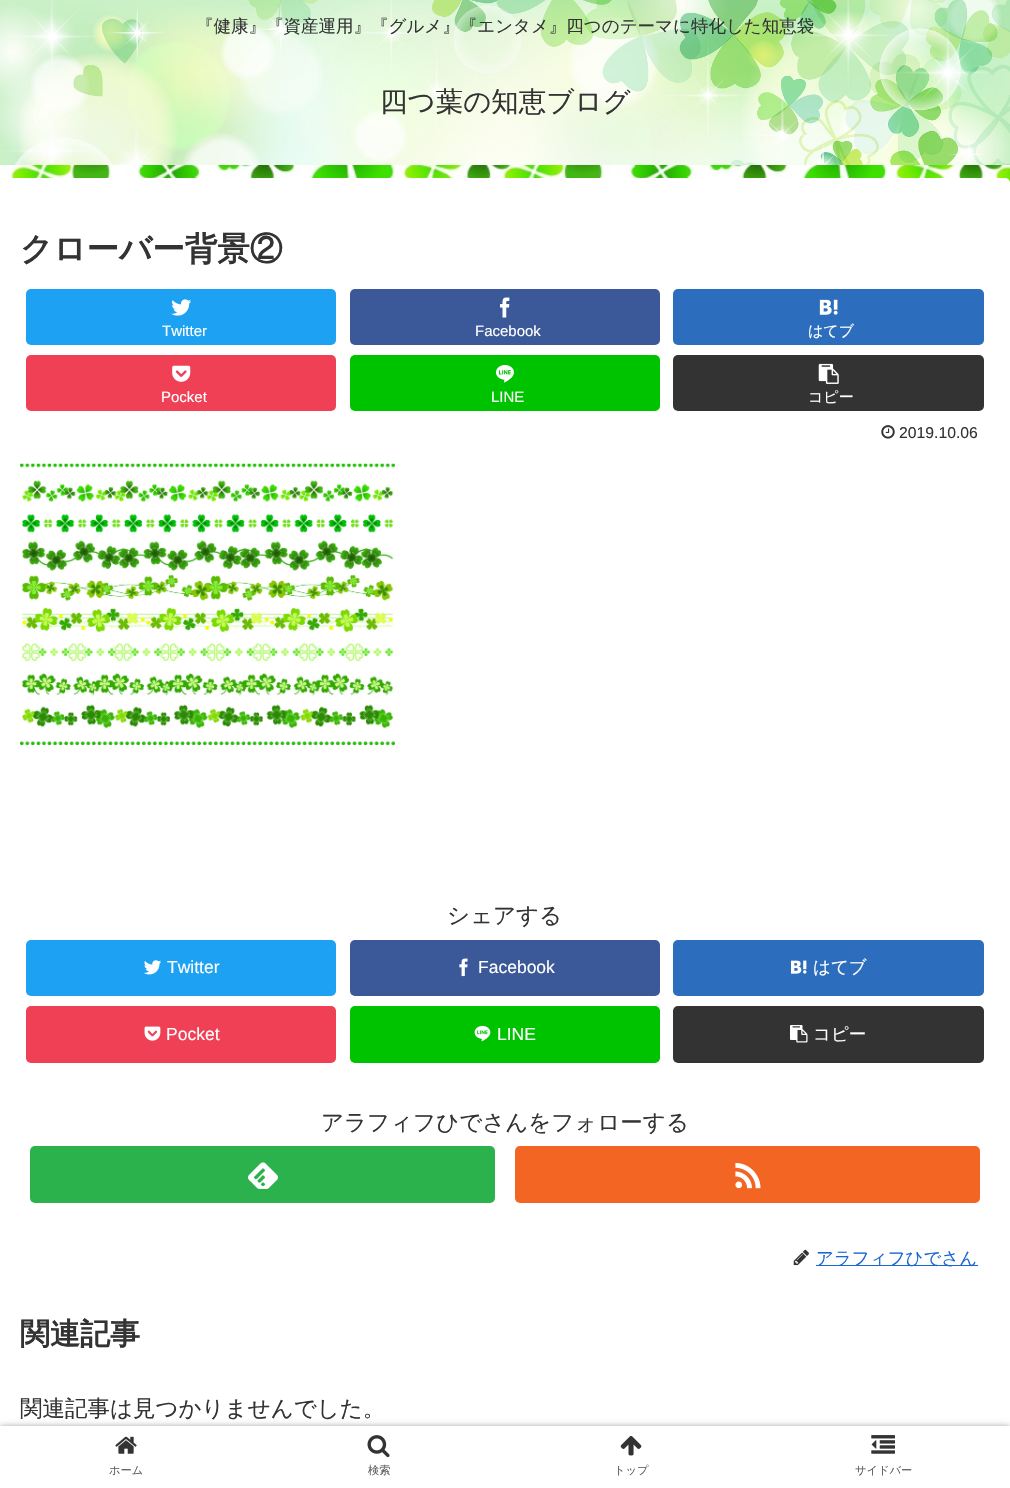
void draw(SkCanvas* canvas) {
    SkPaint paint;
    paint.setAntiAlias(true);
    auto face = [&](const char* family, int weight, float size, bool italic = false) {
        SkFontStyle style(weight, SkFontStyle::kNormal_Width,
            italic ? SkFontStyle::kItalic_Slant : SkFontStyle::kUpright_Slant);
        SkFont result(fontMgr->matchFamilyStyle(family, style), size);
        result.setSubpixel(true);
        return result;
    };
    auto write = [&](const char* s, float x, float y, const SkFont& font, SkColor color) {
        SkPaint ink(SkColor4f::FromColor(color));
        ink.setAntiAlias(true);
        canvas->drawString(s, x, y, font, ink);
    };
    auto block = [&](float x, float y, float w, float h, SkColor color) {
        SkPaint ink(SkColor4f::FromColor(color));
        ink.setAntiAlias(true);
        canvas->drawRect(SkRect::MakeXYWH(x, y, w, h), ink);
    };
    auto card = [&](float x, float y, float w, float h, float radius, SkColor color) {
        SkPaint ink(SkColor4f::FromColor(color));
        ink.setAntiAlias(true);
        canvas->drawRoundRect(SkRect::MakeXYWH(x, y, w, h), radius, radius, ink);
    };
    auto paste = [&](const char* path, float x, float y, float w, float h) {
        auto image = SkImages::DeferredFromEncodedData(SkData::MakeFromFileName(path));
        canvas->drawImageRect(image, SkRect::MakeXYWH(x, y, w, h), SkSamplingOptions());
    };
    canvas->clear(SK_ColorWHITE);
    paste("pic1.png", 0, 165, 1010, 18);
    paste("pic2.png", 0, 0, 1010, 165);
    auto kFont1 = face("WenQuanYi Zen Hei", 500, 17.5f);
    write("『健康』『資産運用』『グルメ』『エンタメ』四つのテーマに特化した知恵袋", 196, 32, kFont1, SkColorSetRGB(51, 51, 51));
    auto kFont2 = face("WenQuanYi Zen Hei", 500, 27.5f);
    write("四つ葉の知恵ブログ", 380, 111, kFont2, SkColorSetRGB(51, 51, 51));
    card(0, 178, 1010, 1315, 5, SK_ColorWHITE);
    auto kFont3 = face("WenQuanYi Zen Hei", 700, 32.5f);
    write("クローバー背景②", 20, 260, kFont3, SkColorSetRGB(51, 51, 51));
    card(26, 289, 310, 56, 5, SkColorSetRGB(29, 161, 242));
    paste("pic3.png", 171, 299, 21, 17);
    auto kFont4 = face("Liberation Sans", 400, 15);
    write("Twitter", 162, 336, kFont4, SK_ColorWHITE);
    card(350, 289, 310, 56, 5, SkColorSetRGB(59, 89, 152));
    paste("pic4.png", 500, 297, 10, 21);
    write("Facebook", 475, 336, kFont4, SK_ColorWHITE);
    card(673, 289, 311, 56, 5, SkColorSetRGB(44, 110, 189));
    paste("pic5.png", 819, 299, 19, 16);
    auto kFont5 = face("WenQuanYi Zen Hei", 500, 15);
    write("はてブ", 808, 336, kFont5, SK_ColorWHITE);
    card(26, 355, 310, 56, 5, SkColorSetRGB(239, 64, 86));
    paste("pic6.png", 172, 365, 19, 17);
    write("Pocket", 161, 402, kFont4, SK_ColorWHITE);
    card(350, 355, 310, 56, 5, SkColorSetRGB(0, 195, 0));
    paste("pic7.png", 496, 365, 18, 18);
    write("LINE", 491, 402, kFont4, SK_ColorWHITE);
    card(673, 355, 311, 56, 5, SkColorSetRGB(51, 51, 51));
    paste("pic8.png", 818, 363, 21, 21);
    write("コピー", 808, 402, kFont5, SK_ColorWHITE);
    paste("pic9.png", 881, 425, 14, 14);
    auto kFont6 = face("Liberation Sans", 400, 15.75f);
    write("2019.10.06", 899, 438, kFont6, SkColorSetRGB(51, 51, 51));
    paste("pic10.png", 20, 463, 375, 282);
    auto kFont7 = face("WenQuanYi Zen Hei", 500, 22.5f);
    write("シェアする", 447, 923, kFont7, SkColorSetRGB(51, 51, 51));
    card(26, 940, 310, 56, 5, SkColorSetRGB(29, 161, 242));
    paste("pic11.png", 144, 960, 17, 15);
    auto kFont8 = face("Liberation Sans", 400, 17.5f);
    write("Twitter", 167, 973, kFont8, SK_ColorWHITE);
    card(350, 940, 310, 56, 5, SkColorSetRGB(59, 89, 152));
    paste("pic12.png", 459, 958, 9, 19);
    write("Facebook", 478, 973, kFont8, SK_ColorWHITE);
    card(673, 940, 311, 56, 5, SkColorSetRGB(44, 110, 189));
    paste("pic13.png", 791, 960, 16, 14);
    write("はてブ", 813, 973, kFont1, SK_ColorWHITE);
    card(26, 1006, 310, 57, 5, SkColorSetRGB(239, 64, 86));
    paste("pic14.png", 144, 1026, 17, 15);
    write("Pocket", 166, 1040, kFont8, SK_ColorWHITE);
    card(350, 1006, 310, 57, 5, SkColorSetRGB(0, 195, 0));
    paste("pic15.png", 474, 1025, 17, 17);
    write("LINE", 497, 1040, kFont8, SK_ColorWHITE);
    card(673, 1006, 311, 57, 5, SkColorSetRGB(51, 51, 51));
    paste("pic16.png", 790, 1025, 18, 18);
    write("コピー", 813, 1040, kFont1, SK_ColorWHITE);
    write("アラフィフひでさんをフォローする", 321, 1130, kFont7, SkColorSetRGB(51, 51, 51));
    card(30, 1146, 465, 57, 5, SkColorSetRGB(43, 178, 76));
    paste("pic17.png", 248, 1162, 30, 27);
    card(515, 1146, 465, 57, 5, SkColorSetRGB(242, 101, 34));
    paste("pic18.png", 735, 1163, 26, 26);
    paste("pic19.png", 793, 1249, 16, 17);
    block(816, 1265, 162, 1, SkColorSetRGB(25, 103, 210));
    write("アラフィフひでさん", 816, 1264, kFont1, SkColorSetRGB(25, 103, 210));
    auto kFont9 = face("WenQuanYi Zen Hei", 700, 30);
    write("関連記事", 20, 1344, kFont9, SkColorSetRGB(51, 51, 51));
    write("関連記事は見つかりませんでした。", 20, 1416, kFont7, SkColorSetRGB(51, 51, 51));
    paint.setColor(SkColorSetRGB(169, 169, 169));
    paint.setMaskFilter(SkMaskFilter::MakeBlur(kNormal_SkBlurStyle, 3));
    canvas->drawRect(SkRect::MakeXYWH(0, 1426, 1010, 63), paint);
    paint.setMaskFilter(nullptr);
    block(0, 1426, 1010, 62, SK_ColorWHITE);
    paste("pic20.png", 115, 1436, 22, 18);
    auto kFont10 = face("WenQuanYi Zen Hei", 500, 11.25f);
    write("ホーム", 109, 1474, kFont10, SkColorSetRGB(92, 92, 92));
    paste("pic21.png", 367, 1435, 23, 23);
    write("検索", 368, 1474, kFont10, SkColorSetRGB(92, 92, 92));
    paste("pic22.png", 620, 1436, 22, 20);
    write("トップ", 614, 1474, kFont10, SkColorSetRGB(92, 92, 92));
    paste("pic23.png", 871, 1435, 24, 19);
    write("サイドバー", 855, 1474, kFont10, SkColorSetRGB(92, 92, 92));
}
